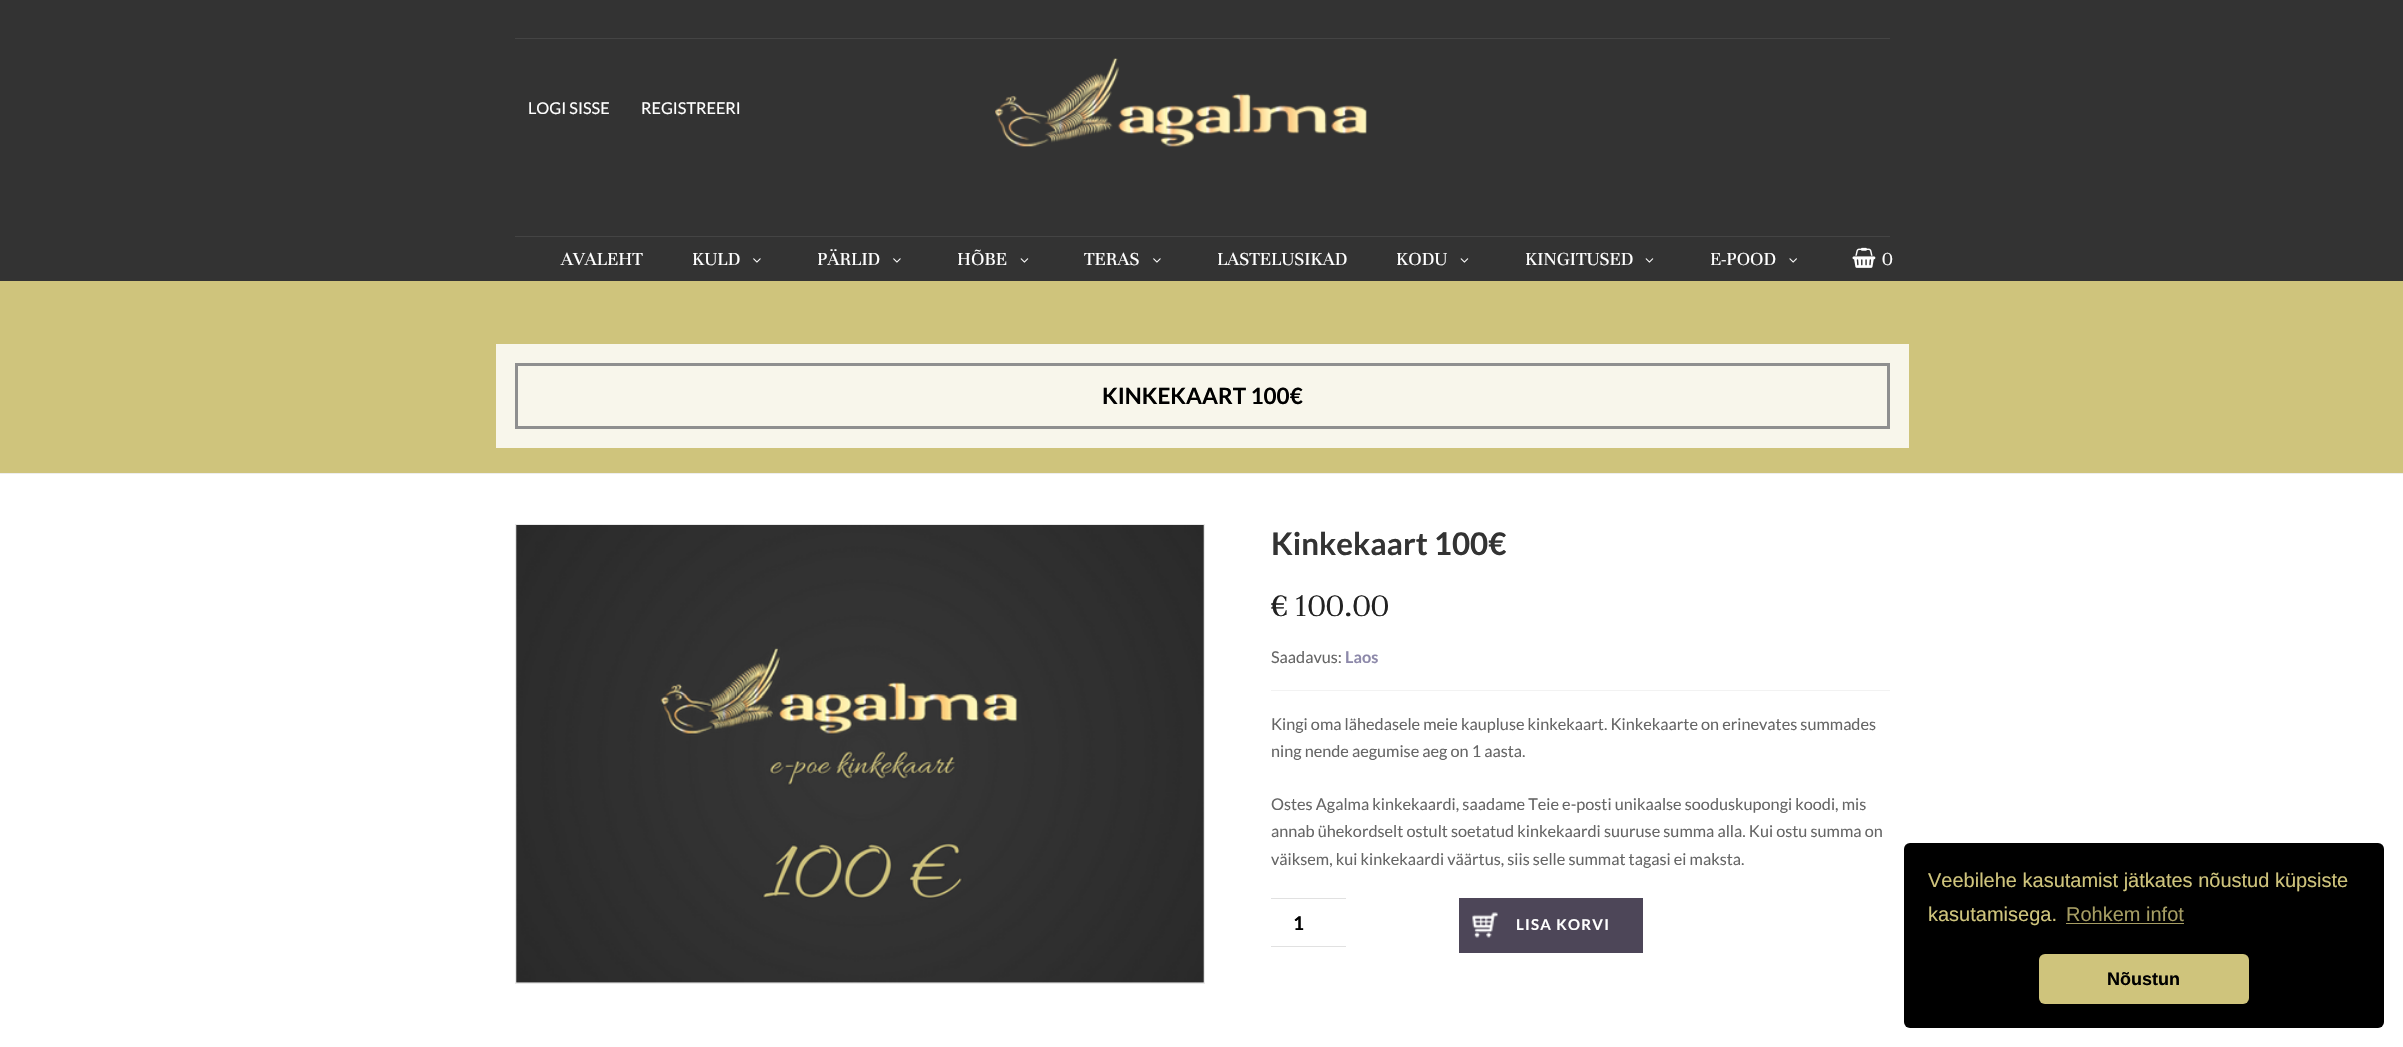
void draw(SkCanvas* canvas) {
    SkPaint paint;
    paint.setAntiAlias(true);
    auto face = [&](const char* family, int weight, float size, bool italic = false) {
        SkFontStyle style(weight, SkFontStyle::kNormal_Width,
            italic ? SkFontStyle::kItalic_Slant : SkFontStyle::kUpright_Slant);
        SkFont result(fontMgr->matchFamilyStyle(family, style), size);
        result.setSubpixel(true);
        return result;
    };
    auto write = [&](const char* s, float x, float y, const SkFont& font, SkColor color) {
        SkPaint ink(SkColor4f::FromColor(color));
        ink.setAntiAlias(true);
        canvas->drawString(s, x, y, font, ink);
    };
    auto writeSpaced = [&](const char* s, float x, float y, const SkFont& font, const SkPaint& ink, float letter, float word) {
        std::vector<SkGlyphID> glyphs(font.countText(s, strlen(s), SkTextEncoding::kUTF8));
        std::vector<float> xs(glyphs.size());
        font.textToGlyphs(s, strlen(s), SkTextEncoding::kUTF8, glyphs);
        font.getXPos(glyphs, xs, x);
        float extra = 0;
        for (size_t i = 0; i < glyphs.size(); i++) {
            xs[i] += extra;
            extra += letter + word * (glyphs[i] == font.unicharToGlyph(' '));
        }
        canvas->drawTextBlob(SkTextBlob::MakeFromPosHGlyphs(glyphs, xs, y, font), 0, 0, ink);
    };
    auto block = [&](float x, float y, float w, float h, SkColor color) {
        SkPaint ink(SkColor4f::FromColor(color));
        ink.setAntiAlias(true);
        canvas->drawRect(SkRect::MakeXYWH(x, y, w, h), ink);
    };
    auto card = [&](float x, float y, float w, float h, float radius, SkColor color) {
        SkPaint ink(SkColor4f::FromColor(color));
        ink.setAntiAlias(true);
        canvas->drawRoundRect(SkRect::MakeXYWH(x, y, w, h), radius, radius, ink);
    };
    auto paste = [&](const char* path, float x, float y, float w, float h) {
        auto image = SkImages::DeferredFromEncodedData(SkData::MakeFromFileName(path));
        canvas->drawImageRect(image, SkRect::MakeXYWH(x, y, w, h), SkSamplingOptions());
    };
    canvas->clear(SK_ColorWHITE);
    block(0, 0, 2403, 281, SkColorSetRGB(51, 51, 51));
    block(515, 38, 1375, 1, SkColorSetRGB(68, 68, 68));
    auto kFont1 = face("Lato", 400, 16.25f);
    write("LOGI SISSE", 528, 114, kFont1, SK_ColorWHITE);
    write("REGISTREERI", 641, 114, kFont1, SK_ColorWHITE);
    paste("pic1.png", 995, 58, 372, 89);
    block(515, 236, 1375, 1, SkColorSetRGB(68, 68, 68));
    auto kFont2 = face("Unna", 400, 20);
    write("AVALEHT", 561, 265, kFont2, SK_ColorWHITE);
    write("KULD", 692, 265, kFont2, SK_ColorWHITE);
    paste("pic2.png", 753, 258, 8, 5);
    write("PÄRLID", 817, 265, kFont2, SK_ColorWHITE);
    paste("pic2.png", 893, 258, 8, 5);
    write("HÕBE", 957, 265, kFont2, SK_ColorWHITE);
    paste("pic3.png", 1020, 258, 9, 5);
    write("TERAS", 1084, 265, kFont2, SK_ColorWHITE);
    paste("pic2.png", 1153, 258, 8, 5);
    write("LASTELUSIKAD", 1217, 265, kFont2, SK_ColorWHITE);
    write("KODU", 1396, 265, kFont2, SK_ColorWHITE);
    paste("pic3.png", 1460, 258, 9, 5);
    write("KINGITUSED", 1525, 265, kFont2, SK_ColorWHITE);
    paste("pic3.png", 1645, 258, 9, 5);
    write("E-POOD", 1710, 265, kFont2, SK_ColorWHITE);
    paste("pic4.png", 1789, 258, 8, 5);
    paste("pic5.png", 1852, 247, 24, 21);
    write("0", 1882, 265, kFont2, SK_ColorWHITE);
    block(0, 281, 2403, 192, SkColorSetRGB(207, 196, 124));
    block(0, 473, 2403, 1, SkColorSetRGB(238, 238, 238));
    block(496, 344, 1413, 104, SkColorSetRGB(248, 246, 235));
    paint.setStyle(SkPaint::kStroke_Style);
    paint.setStrokeWidth(3);
    paint.setColor(SkColorSetRGB(143, 143, 143));
    canvas->drawRect(SkRect::MakeXYWH(516.5f, 364.5f, 1372, 63), paint);
    auto kFont3 = face("Lato", 700, 22.5f);
    write("KINKEKAART 100€", 1102, 404, kFont3, SK_ColorBLACK);
    paint.setStrokeWidth(1);
    paint.setColor(SkColorSetRGB(233, 233, 233));
    canvas->drawRect(SkRect::MakeXYWH(515.5f, 524.5f, 689, 459), paint);
    paste("pic6.png", 516, 525, 688, 458);
    auto kFont4 = face("Lato", 700, 31.25f);
    write("Kinkekaart 100€", 1271, 555, kFont4, SkColorSetRGB(51, 51, 51));
    auto kFont5 = face("Unna", 400, 34);
    write("€ 100.00", 1271, 616, kFont5, SkColorSetRGB(34, 34, 34));
    write("Saadavus:", 1271, 663, kFont1, SkColorSetRGB(102, 102, 102));
    auto kFont6 = face("Lato", 700, 16.25f);
    write("Laos", 1345, 663, kFont6, SkColorSetRGB(141, 137, 170));
    block(1271, 690, 619, 1, SkColorSetRGB(242, 242, 242));
    write("Kingi oma lähedasele meie kaupluse kinkekaart. Kinkekaarte on erinevates summades", 1271, 730, kFont1, SkColorSetRGB(102, 102, 102));
    write("ning nende aegumise aeg on 1 aasta.", 1271, 757, kFont1, SkColorSetRGB(102, 102, 102));
    write("Ostes Agalma kinkekaardi, saadame Teie e-posti unikaalse sooduskupongi koodi, mis", 1271, 810, kFont1, SkColorSetRGB(102, 102, 102));
    write("annab ühekordselt ostult soetatud kinkekaardi suuruse summa alla. Kui ostu summa on", 1271, 837, kFont1, SkColorSetRGB(102, 102, 102));
    write("väiksem, kui kinkekaardi väärtus, siis selle summat tagasi ei maksta.", 1271, 865, kFont1, SkColorSetRGB(102, 102, 102));
    block(1271, 898, 75, 1, SkColorSetRGB(225, 225, 225));
    block(1271, 946, 75, 1, SkColorSetRGB(225, 225, 225));
    auto kFont7 = face("Lato", 700, 19);
    write("1", 1293, 930, kFont7, SK_ColorBLACK);
    block(1459, 898, 184, 55, SkColorSetRGB(77, 70, 88));
    paste("pic7.png", 1472, 912, 26, 26);
    auto kFont8 = face("Lato", 700, 15);
    paint.setStyle(SkPaint::kFill_Style);
    paint.setColor(SK_ColorWHITE);
    writeSpaced("LISA KORVI", 1516, 930, kFont8, paint, 1.25f, 0);
    card(1904, 843, 480, 185, 6, SK_ColorBLACK);
    auto kFont9 = face("Liberation Sans", 400, 20);
    write("Veebilehe kasutamist jätkates nõustud küpsiste", 1928, 887, kFont9, SkColorSetRGB(207, 196, 124));
    write("kasutamisega.", 1928, 921, kFont9, SkColorSetRGB(207, 196, 124));
    write("Rohkem infot", 2066, 921, kFont9, SkColorSetRGB(166, 157, 99));
    block(2066, 923, 118, 1, SkColorSetRGB(166, 157, 99));
    card(2039, 954, 210, 50, 6, SkColorSetRGB(207, 196, 124));
    auto kFont10 = face("Liberation Sans", 700, 18);
    write("Nõustun", 2107, 985, kFont10, SK_ColorBLACK);
}
